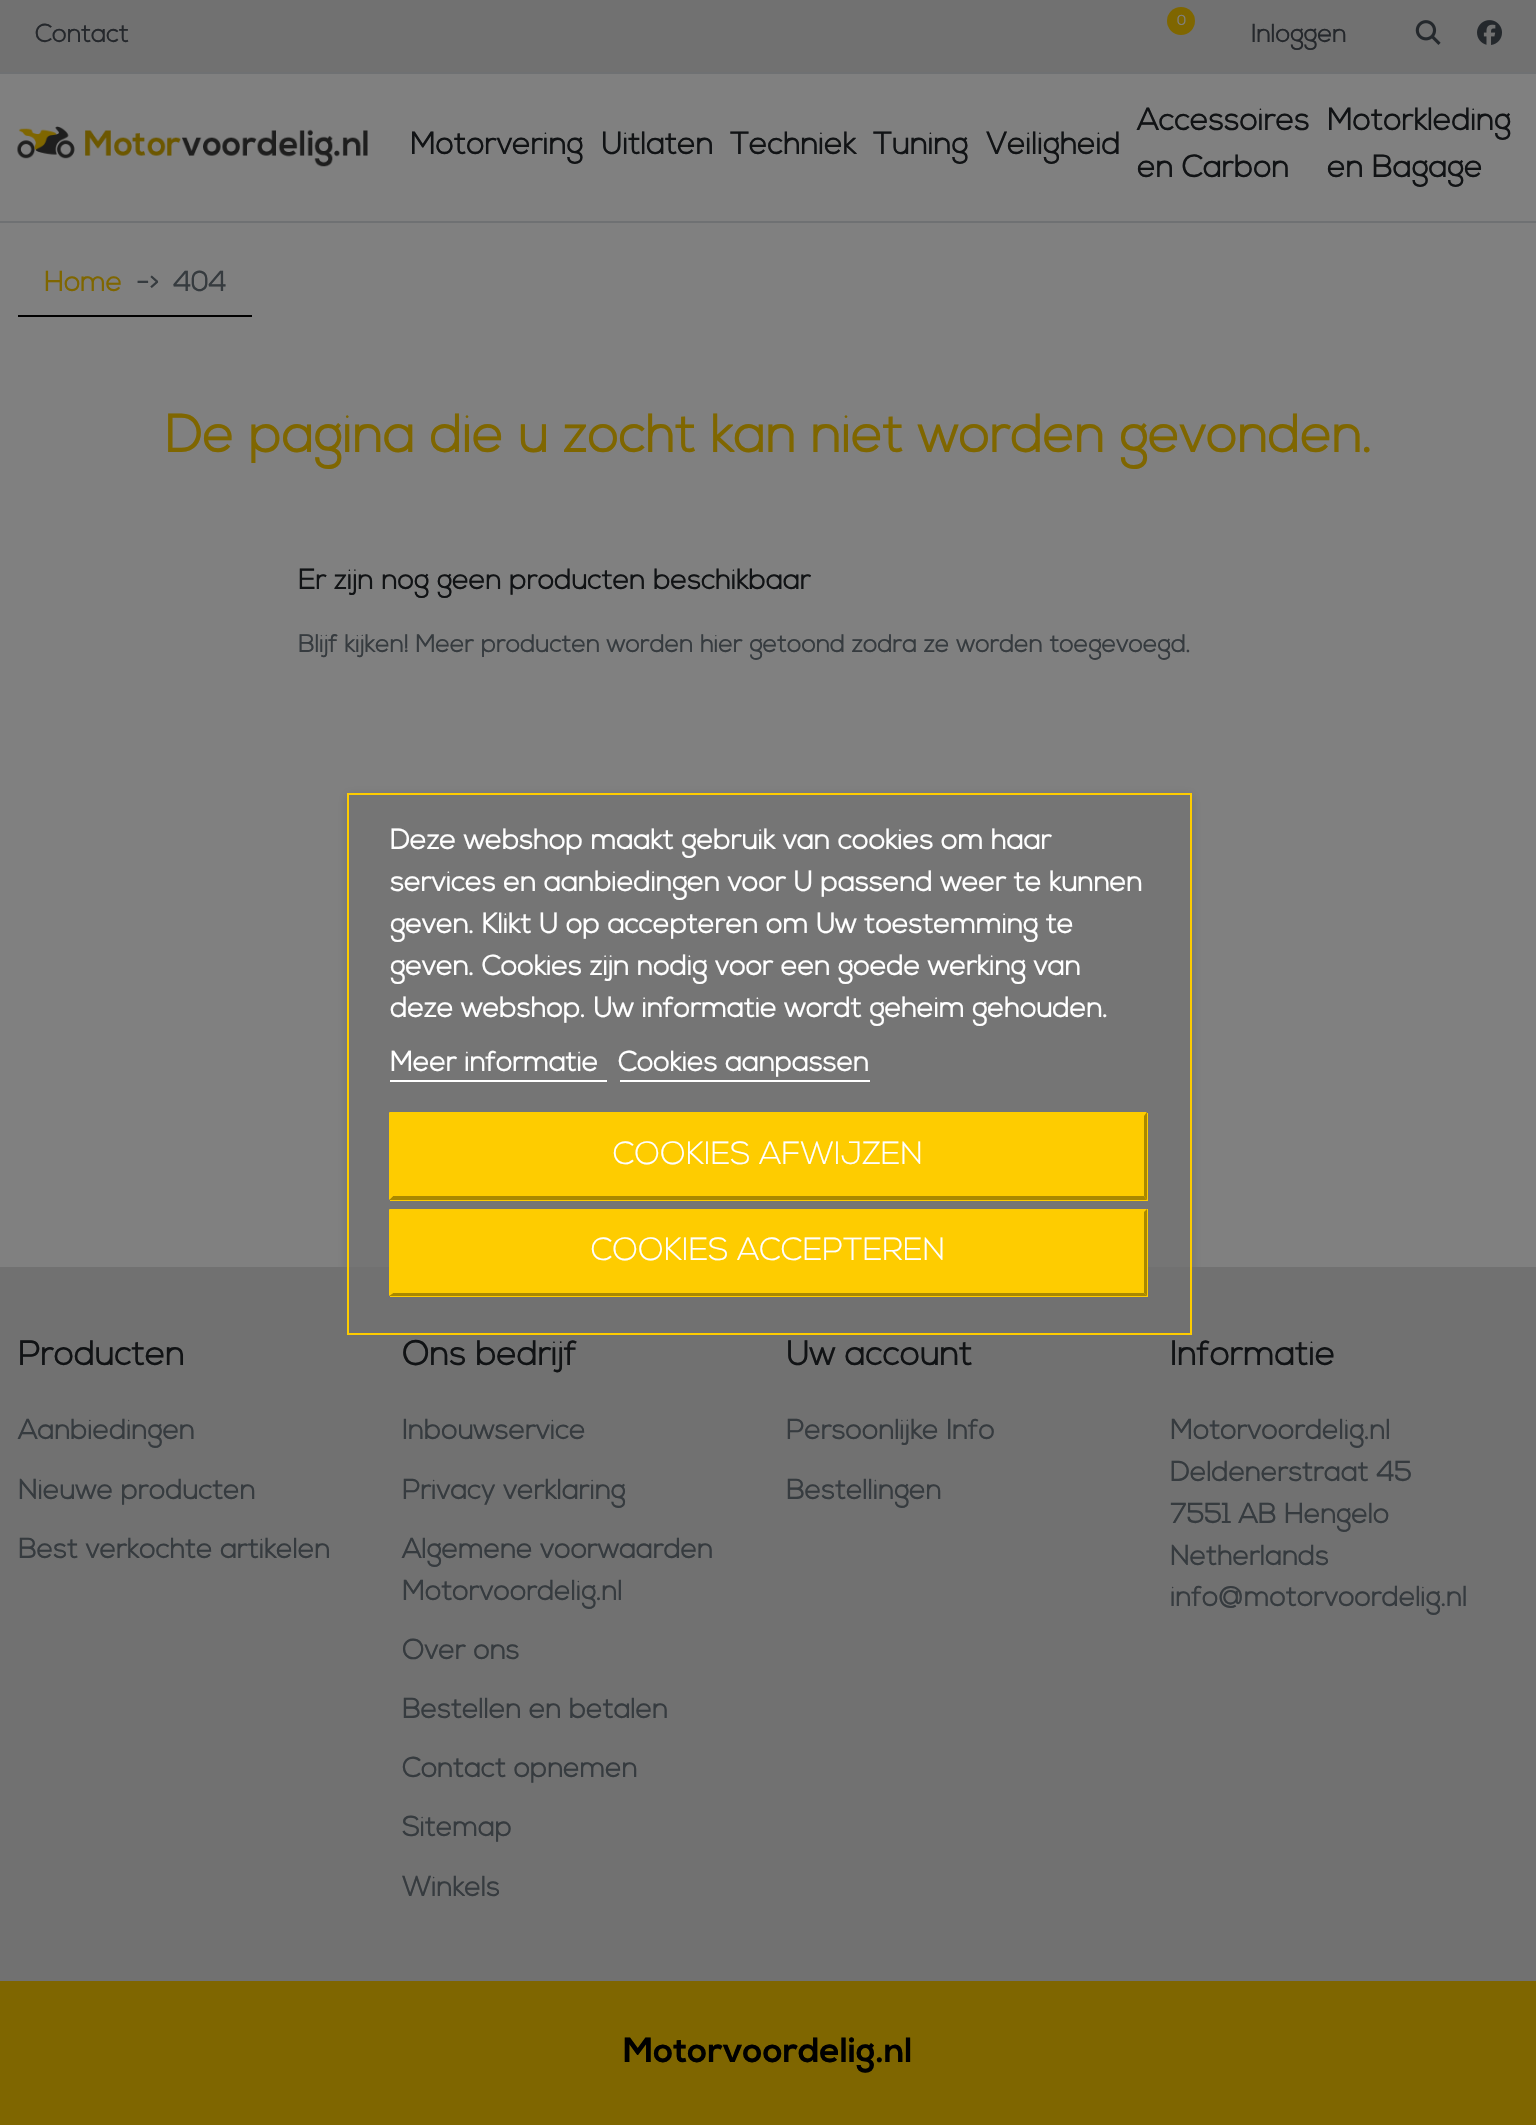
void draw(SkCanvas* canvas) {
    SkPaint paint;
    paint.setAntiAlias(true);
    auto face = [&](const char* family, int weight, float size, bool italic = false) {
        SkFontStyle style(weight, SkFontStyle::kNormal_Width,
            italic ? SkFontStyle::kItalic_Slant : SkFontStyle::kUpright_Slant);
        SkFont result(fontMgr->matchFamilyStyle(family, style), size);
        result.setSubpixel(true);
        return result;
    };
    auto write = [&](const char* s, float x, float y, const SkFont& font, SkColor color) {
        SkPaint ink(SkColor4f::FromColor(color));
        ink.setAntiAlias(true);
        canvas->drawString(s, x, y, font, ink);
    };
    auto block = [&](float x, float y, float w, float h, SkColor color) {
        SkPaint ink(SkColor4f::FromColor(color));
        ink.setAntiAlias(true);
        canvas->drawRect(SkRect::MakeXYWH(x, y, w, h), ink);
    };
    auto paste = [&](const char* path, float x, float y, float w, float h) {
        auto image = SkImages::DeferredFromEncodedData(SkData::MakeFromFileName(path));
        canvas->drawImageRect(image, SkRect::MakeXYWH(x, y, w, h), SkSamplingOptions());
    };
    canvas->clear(SkColorSetRGB(128, 128, 128));
    block(0, 221, 1536, 2, SkColorSetRGB(111, 113, 115));
    block(0, 0, 1536, 72, SkColorSetRGB(113, 113, 113));
    block(0, 72, 1536, 2, SkColorSetRGB(111, 113, 115));
    auto kFont1 = face("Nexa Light", 700, 25);
    write("Contact", 35, 42, kFont1, SkColorSetRGB(37, 40, 44));
    paint.setColor(SkColorSetRGB(127, 102, 0));
    canvas->drawCircle(1181, 21, 14, paint);
    auto kFont2 = face("Nexa Light", 700, 14);
    write("0", 1177, 25, kFont2, SkColorSetRGB(128, 128, 128));
    write("Inloggen", 1251, 42, kFont1, SkColorSetRGB(37, 40, 44));
    paste("pic1.png", 1415, 20, 26, 25);
    paste("pic2.png", 1477, 20, 25, 25);
    paste("pic3.png", 17, 126, 351, 41);
    auto kFont3 = face("Nexa Light", 700, 31);
    write("Motorvering", 410, 154, kFont3, SkColorSetRGB(17, 19, 21));
    write("Uitlaten", 601, 154, kFont3, SkColorSetRGB(17, 19, 21));
    write("Techniek", 730, 154, kFont3, SkColorSetRGB(17, 19, 21));
    write("Tuning", 873, 154, kFont3, SkColorSetRGB(17, 19, 21));
    write("Veiligheid", 986, 154, kFont3, SkColorSetRGB(17, 19, 21));
    write("Accessoires", 1137, 130, kFont3, SkColorSetRGB(17, 19, 21));
    write("en Carbon", 1137, 177, kFont3, SkColorSetRGB(17, 19, 21));
    write("Motorkleding", 1327, 130, kFont3, SkColorSetRGB(17, 19, 21));
    write("en Bagage", 1327, 177, kFont3, SkColorSetRGB(17, 19, 21));
    block(0, 1267, 1536, 714, SkColorSetRGB(113, 113, 113));
    canvas->save();
    canvas->clipPath(SkPathBuilder(SkPathFillType::kEvenOdd).moveTo(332, 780).lineTo(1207, 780).lineTo(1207, 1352).lineTo(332, 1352).close().moveTo(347, 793).lineTo(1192, 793).lineTo(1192, 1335).lineTo(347, 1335).close().detach(), true);
    paint.setColor(SkColorSetRGB(112, 112, 112));
    paint.setMaskFilter(SkMaskFilter::MakeBlur(kNormal_SkBlurStyle, 4.5f));
    canvas->drawRect(SkRect::MakeXYWH(347, 795, 845, 542), paint);
    paint.setMaskFilter(nullptr);
    canvas->restore();
    block(349, 795, 841, 472, SkColorSetARGB(179, 112, 112, 112));
    paint.setStyle(SkPaint::kStroke_Style);
    paint.setStrokeWidth(2);
    paint.setColor(SkColorSetRGB(254, 204, 0));
    canvas->drawRect(SkRect::MakeXYWH(348, 794, 843, 540), paint);
    auto kFont4 = face("Nexa Light", 700, 28);
    write("Deze webshop maakt gebruik van cookies om haar", 390, 849, kFont4, SK_ColorWHITE);
    write("services en aanbiedingen voor U passend weer te kunnen", 390, 891, kFont4, SK_ColorWHITE);
    write("geven. Klikt U op accepteren om Uw toestemming te", 390, 933, kFont4, SK_ColorWHITE);
    write("geven. Cookies zijn nodig voor een goede werking van", 390, 975, kFont4, SK_ColorWHITE);
    write("deze webshop. Uw informatie wordt geheim gehouden.", 390, 1017, kFont4, SK_ColorWHITE);
    auto kFont5 = face("Nexa Light", 700, 27.75f);
    write("Meer informatie", 390, 1071, kFont5, SK_ColorWHITE);
    block(390, 1080, 217, 2, SK_ColorWHITE);
    write("Cookies aanpassen", 618, 1071, kFont5, SK_ColorWHITE);
    block(620, 1080, 250, 2, SK_ColorWHITE);
    block(390, 1113, 758, 88, SkColorSetRGB(254, 204, 0));
    paint.setStyle(SkPaint::kFill_Style);
    canvas->drawPath(SkPathBuilder().moveTo(389, 1112).lineTo(1147, 1112).lineTo(1144, 1116).lineTo(393, 1116).close().detach(), paint);
    paint.setColor(SkColorSetRGB(169, 136, 0));
    canvas->drawPath(SkPathBuilder().moveTo(1147, 1112).lineTo(1147, 1200).lineTo(1144, 1196).lineTo(1144, 1116).close().detach(), paint);
    canvas->drawPath(SkPathBuilder().moveTo(1147, 1200).lineTo(389, 1200).lineTo(393, 1196).lineTo(1144, 1196).close().detach(), paint);
    paint.setColor(SkColorSetRGB(254, 204, 0));
    canvas->drawPath(SkPathBuilder().moveTo(389, 1200).lineTo(389, 1112).lineTo(393, 1116).lineTo(393, 1196).close().detach(), paint);
    auto kFont6 = face("Nexa Light", 300, 32);
    write("COOKIES AFWIJZEN", 613, 1164, kFont6, SK_ColorWHITE);
    block(390, 1209, 758, 88, SkColorSetRGB(254, 204, 0));
    canvas->drawPath(SkPathBuilder().moveTo(389, 1209).lineTo(1147, 1209).lineTo(1144, 1212).lineTo(393, 1212).close().detach(), paint);
    paint.setColor(SkColorSetRGB(169, 136, 0));
    canvas->drawPath(SkPathBuilder().moveTo(1147, 1209).lineTo(1147, 1296).lineTo(1144, 1293).lineTo(1144, 1212).close().detach(), paint);
    canvas->drawPath(SkPathBuilder().moveTo(1147, 1296).lineTo(389, 1296).lineTo(393, 1293).lineTo(1144, 1293).close().detach(), paint);
    paint.setColor(SkColorSetRGB(254, 204, 0));
    canvas->drawPath(SkPathBuilder().moveTo(389, 1296).lineTo(389, 1209).lineTo(393, 1212).lineTo(393, 1293).close().detach(), paint);
    write("COOKIES ACCEPTEREN", 591, 1260, kFont6, SK_ColorWHITE);
    block(18, 315, 234, 2, SK_ColorBLACK);
    write("Home", 44, 291, kFont5, SkColorSetRGB(127, 102, 0));
    write("->", 136, 291, kFont5, SkColorSetRGB(54, 59, 63));
    write("404", 173, 291, kFont5, SkColorSetRGB(54, 59, 63));
    auto kFont7 = face("Nexa Light", 700, 52.9f);
    write("De pagina die u zocht kan niet worden gevonden.", 165, 452, kFont7, SkColorSetRGB(127, 102, 0));
    write("Er zijn nog geen producten beschikbaar", 298, 589, kFont4, SkColorSetRGB(17, 19, 21));
    auto kFont8 = face("Nexa Light", 700, 24.5f);
    write("Blijf kijken! Meer producten worden hier getoond zodra ze worden toegevoegd.", 298, 652, kFont8, SkColorSetRGB(54, 59, 63));
    auto kFont9 = face("Nexa Light", 700, 34);
    write("Producten", 18, 1365, kFont9, SkColorSetRGB(17, 19, 21));
    write("Aanbiedingen", 18, 1439, kFont5, SkColorSetRGB(54, 59, 63));
    write("Nieuwe producten", 18, 1499, kFont5, SkColorSetRGB(54, 59, 63));
    write("Best verkochte artikelen", 18, 1558, kFont5, SkColorSetRGB(54, 59, 63));
    write("Ons bedrijf", 402, 1365, kFont9, SkColorSetRGB(17, 19, 21));
    write("Inbouwservice", 402, 1439, kFont5, SkColorSetRGB(54, 59, 63));
    write("Privacy verklaring", 402, 1499, kFont5, SkColorSetRGB(54, 59, 63));
    write("Algemene voorwaarden", 402, 1558, kFont5, SkColorSetRGB(54, 59, 63));
    write("Motorvoordelig.nl", 402, 1600, kFont5, SkColorSetRGB(54, 59, 63));
    write("Over ons", 402, 1659, kFont5, SkColorSetRGB(54, 59, 63));
    write("Bestellen en betalen", 402, 1718, kFont5, SkColorSetRGB(54, 59, 63));
    write("Contact opnemen", 402, 1777, kFont5, SkColorSetRGB(54, 59, 63));
    write("Sitemap", 402, 1836, kFont5, SkColorSetRGB(54, 59, 63));
    write("Winkels", 402, 1896, kFont5, SkColorSetRGB(54, 59, 63));
    write("Uw account", 786, 1365, kFont9, SkColorSetRGB(17, 19, 21));
    write("Persoonlijke Info", 786, 1439, kFont5, SkColorSetRGB(54, 59, 63));
    write("Bestellingen", 786, 1499, kFont5, SkColorSetRGB(54, 59, 63));
    write("Informatie", 1170, 1365, kFont9, SkColorSetRGB(17, 19, 21));
    write("Motorvoordelig.nl", 1170, 1439, kFont5, SkColorSetRGB(54, 59, 63));
    write("Deldenerstraat 45", 1170, 1481, kFont5, SkColorSetRGB(54, 59, 63));
    write("7551 AB Hengelo", 1170, 1523, kFont5, SkColorSetRGB(54, 59, 63));
    write("Netherlands", 1170, 1565, kFont5, SkColorSetRGB(54, 59, 63));
    write("info@motorvoordelig.nl", 1170, 1606, kFont5, SkColorSetRGB(54, 59, 63));
    block(0, 1981, 1536, 144, SkColorSetRGB(127, 102, 0));
    auto kFont10 = face("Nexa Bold", 700, 35);
    write("Motorvoordelig.nl", 623, 2062, kFont10, SK_ColorBLACK);
}
